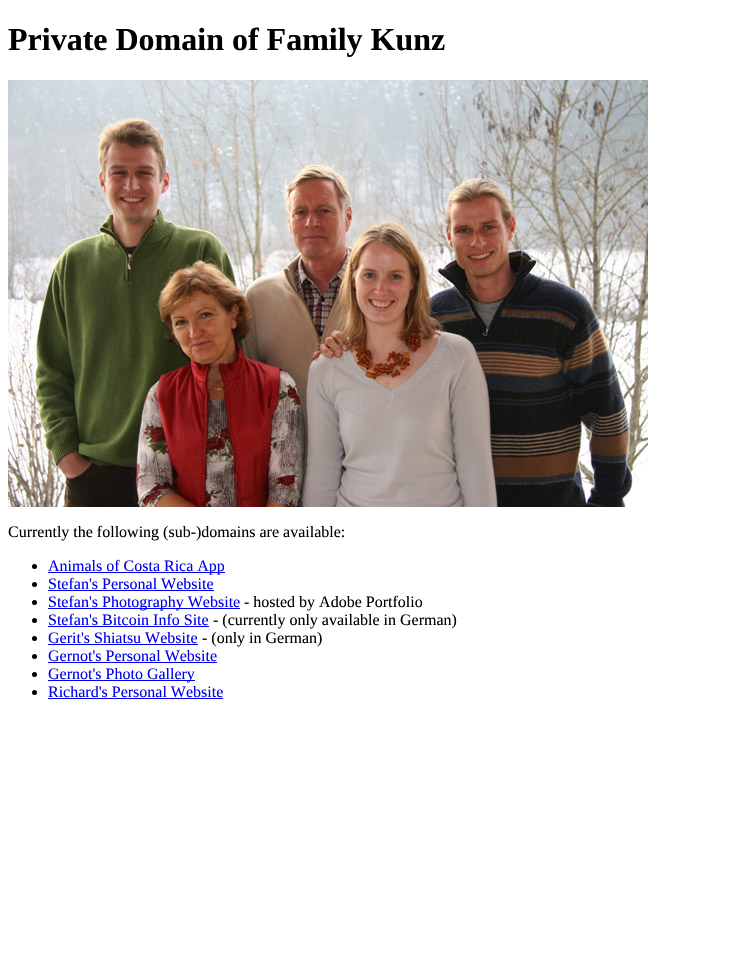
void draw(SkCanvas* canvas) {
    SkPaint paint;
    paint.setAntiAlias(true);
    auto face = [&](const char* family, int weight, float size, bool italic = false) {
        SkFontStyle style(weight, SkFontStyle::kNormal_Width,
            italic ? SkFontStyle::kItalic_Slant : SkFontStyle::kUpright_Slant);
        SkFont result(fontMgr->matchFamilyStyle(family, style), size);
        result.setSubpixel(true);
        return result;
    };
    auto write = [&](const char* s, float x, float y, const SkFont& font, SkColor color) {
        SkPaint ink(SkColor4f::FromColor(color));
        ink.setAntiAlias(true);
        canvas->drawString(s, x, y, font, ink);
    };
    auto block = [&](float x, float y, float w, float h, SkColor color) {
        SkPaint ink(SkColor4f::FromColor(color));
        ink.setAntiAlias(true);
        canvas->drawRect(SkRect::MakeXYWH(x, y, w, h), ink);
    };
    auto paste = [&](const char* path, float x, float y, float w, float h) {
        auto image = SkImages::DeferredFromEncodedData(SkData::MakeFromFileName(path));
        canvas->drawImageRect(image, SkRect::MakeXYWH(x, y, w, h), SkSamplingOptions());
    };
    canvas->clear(SK_ColorWHITE);
    auto kFont1 = face("Liberation Serif", 700, 32);
    write("Private Domain of Family Kunz", 8, 50, kFont1, SK_ColorBLACK);
    paste("pic1.png", 8, 80, 640, 427);
    auto kFont2 = face("Liberation Serif", 400, 16);
    write("Currently the following (sub-)domains are available:", 8, 537, kFont2, SK_ColorBLACK);
    paint.setColor(SK_ColorBLACK);
    canvas->drawCircle(34.5f, 566.5f, 2.5f, paint);
    block(48, 572, 177, 1, SkColorSetRGB(0, 0, 238));
    write("Animals of Costa Rica App", 48, 571, kFont2, SkColorSetRGB(0, 0, 238));
    canvas->drawCircle(34.5f, 584.5f, 2.5f, paint);
    write("Stefan's Personal Website", 48, 589, kFont2, SkColorSetRGB(0, 0, 238));
    block(48, 590, 166, 1, SkColorSetRGB(0, 0, 238));
    canvas->drawCircle(34.5f, 602.5f, 2.5f, paint);
    block(48, 608, 192, 1, SkColorSetRGB(0, 0, 238));
    write("Stefan's Photography Website", 48, 607, kFont2, SkColorSetRGB(0, 0, 238));
    write("- hosted by Adobe Portfolio", 244, 607, kFont2, SK_ColorBLACK);
    canvas->drawCircle(34.5f, 620.5f, 2.5f, paint);
    write("Stefan's Bitcoin Info Site", 48, 625, kFont2, SkColorSetRGB(0, 0, 238));
    block(48, 626, 161, 1, SkColorSetRGB(0, 0, 238));
    write("- (currently only available in German)", 213, 625, kFont2, SK_ColorBLACK);
    canvas->drawCircle(34.5f, 638.5f, 2.5f, paint);
    write("Gerit's Shiatsu Website", 48, 643, kFont2, SkColorSetRGB(0, 0, 238));
    block(48, 644, 150, 1, SkColorSetRGB(0, 0, 238));
    write("- (only in German)", 202, 643, kFont2, SK_ColorBLACK);
    canvas->drawCircle(34.5f, 656.5f, 2.5f, paint);
    write("Gernot's Personal Website", 48, 661, kFont2, SkColorSetRGB(0, 0, 238));
    block(48, 662, 169, 1, SkColorSetRGB(0, 0, 238));
    canvas->drawCircle(34.5f, 674.5f, 2.5f, paint);
    block(48, 680, 147, 1, SkColorSetRGB(0, 0, 238));
    write("Gernot's Photo Gallery", 48, 679, kFont2, SkColorSetRGB(0, 0, 238));
    canvas->drawCircle(34.5f, 692.5f, 2.5f, paint);
    write("Richard's Personal Website", 48, 697, kFont2, SkColorSetRGB(0, 0, 238));
    block(48, 698, 175, 1, SkColorSetRGB(0, 0, 238));
}
